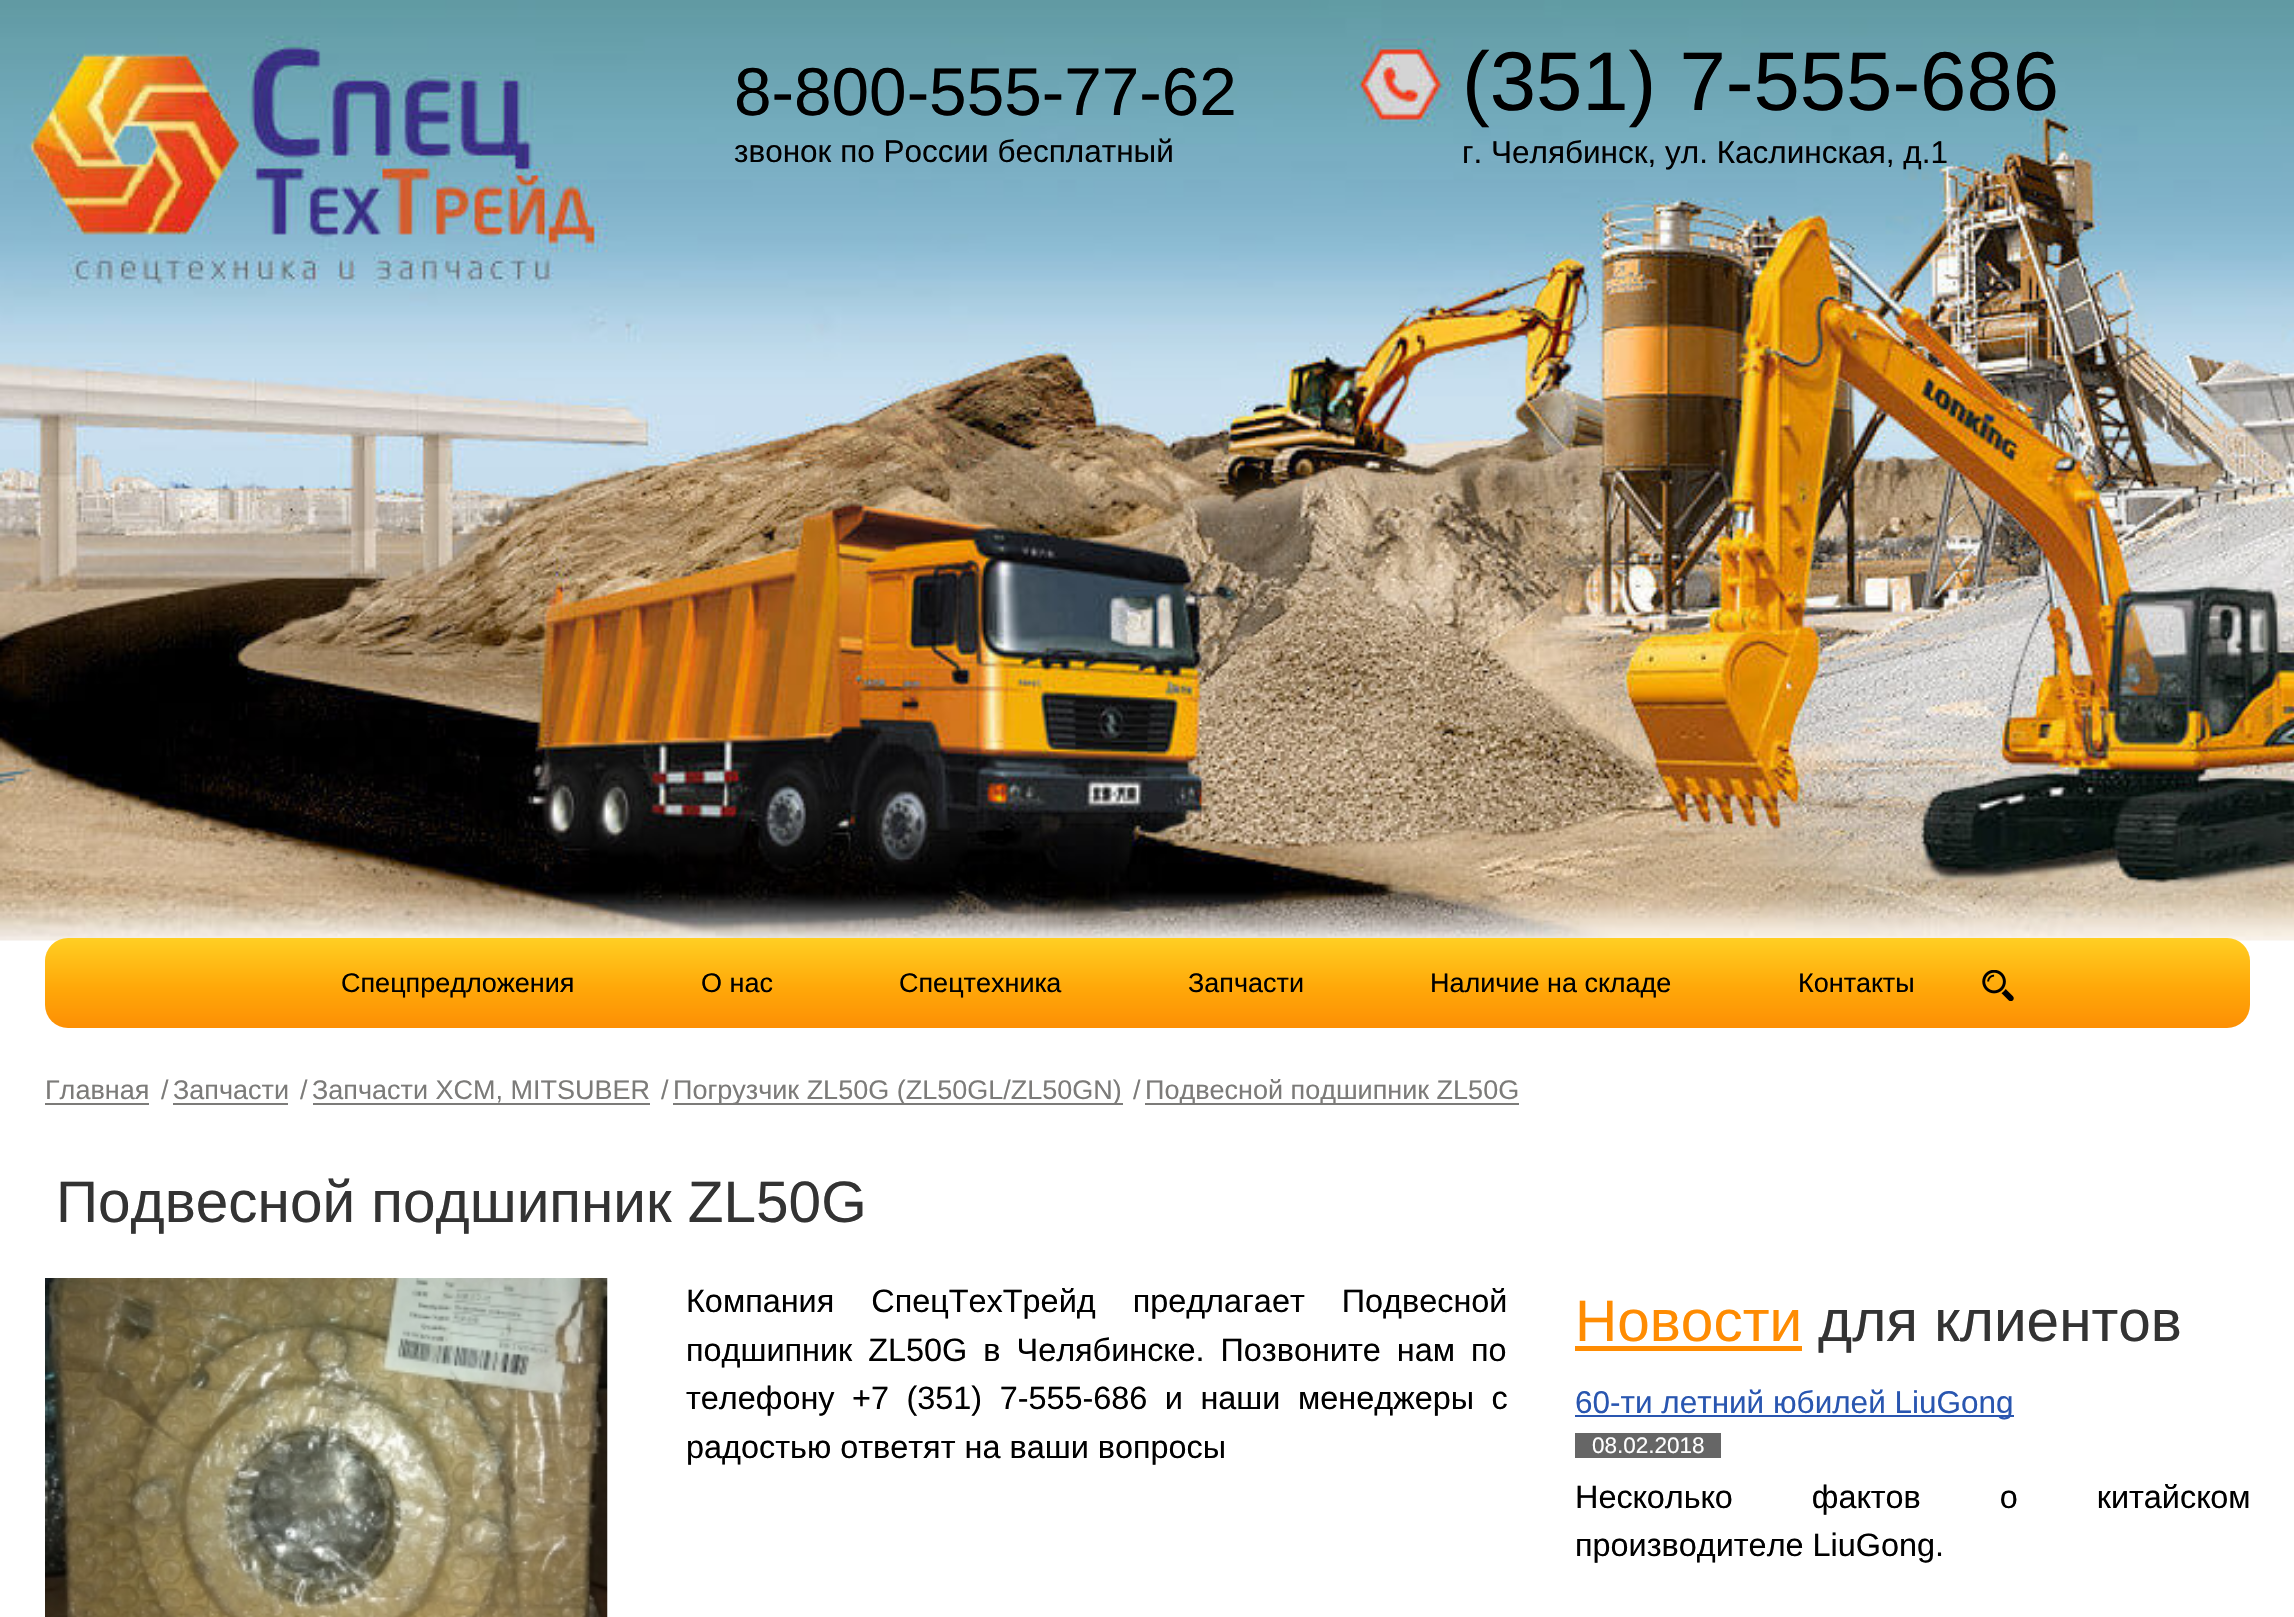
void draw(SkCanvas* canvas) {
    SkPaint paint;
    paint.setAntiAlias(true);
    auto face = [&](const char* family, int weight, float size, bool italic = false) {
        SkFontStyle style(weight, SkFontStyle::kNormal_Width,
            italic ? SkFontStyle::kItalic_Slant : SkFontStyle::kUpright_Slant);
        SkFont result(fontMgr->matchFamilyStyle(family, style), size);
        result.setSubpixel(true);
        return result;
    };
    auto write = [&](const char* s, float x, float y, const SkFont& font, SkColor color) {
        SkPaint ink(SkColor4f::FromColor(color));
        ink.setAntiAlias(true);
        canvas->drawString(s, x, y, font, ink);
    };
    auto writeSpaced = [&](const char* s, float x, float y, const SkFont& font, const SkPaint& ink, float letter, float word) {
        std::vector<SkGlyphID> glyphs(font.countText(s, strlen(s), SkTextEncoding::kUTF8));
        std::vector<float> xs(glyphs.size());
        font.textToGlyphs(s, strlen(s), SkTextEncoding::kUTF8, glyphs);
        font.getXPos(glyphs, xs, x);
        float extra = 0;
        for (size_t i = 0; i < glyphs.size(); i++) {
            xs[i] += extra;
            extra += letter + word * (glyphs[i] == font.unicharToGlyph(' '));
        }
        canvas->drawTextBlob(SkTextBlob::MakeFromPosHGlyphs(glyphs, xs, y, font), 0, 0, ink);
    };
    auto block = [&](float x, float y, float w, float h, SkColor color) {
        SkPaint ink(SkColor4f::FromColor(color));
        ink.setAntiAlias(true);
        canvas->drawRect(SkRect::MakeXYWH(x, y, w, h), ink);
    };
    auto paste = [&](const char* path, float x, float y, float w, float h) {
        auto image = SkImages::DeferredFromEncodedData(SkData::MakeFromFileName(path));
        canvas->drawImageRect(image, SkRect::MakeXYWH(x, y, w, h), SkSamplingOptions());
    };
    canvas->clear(SK_ColorWHITE);
    paste("pic1.png", 0, 0, 2294, 941);
    auto kFont1 = face("Liberation Sans", 400, 67.5f);
    write("8-800-555-77-62", 734, 115, kFont1, SK_ColorBLACK);
    auto kFont2 = face("Liberation Sans", 400, 31.5f);
    write("звонок по России бесплатный", 734, 162, kFont2, SK_ColorBLACK);
    auto kFont3 = face("Liberation Sans", 400, 83.25f);
    write("(351) 7-555-686", 1462, 110, kFont3, SK_ColorBLACK);
    write("г. Челябинск, ул. Каслинская, д.1", 1462, 163, kFont2, SK_ColorBLACK);
    {
        const SkColor colors[] = {SkColorSetRGB(255, 207, 35), SkColorSetRGB(255, 168, 9), SkColorSetRGB(253, 143, 4)};
        const float stops[] = {0, 0.55f, 1};
        const SkPoint ends[] = {{1148, 938}, {1148, 1028}};
        paint.setShader(SkGradientShader::MakeLinear(ends, colors, stops, 3, SkTileMode::kClamp));
        paint.setAlpha(255);
    }
    canvas->drawRoundRect(SkRect::MakeXYWH(45, 938, 2205, 90), 23, 23, paint);
    auto kFont4 = face("Liberation Sans", 400, 27);
    write("Спецпредложения", 341, 992, kFont4, SK_ColorBLACK);
    write("О нас", 701, 992, kFont4, SK_ColorBLACK);
    write("Спецтехника", 899, 992, kFont4, SK_ColorBLACK);
    write("Запчасти", 1188, 992, kFont4, SK_ColorBLACK);
    write("Наличие на складе", 1430, 992, kFont4, SK_ColorBLACK);
    write("Контакты", 1798, 992, kFont4, SK_ColorBLACK);
    paste("pic2.png", 1982, 970, 32, 31);
    write("Главная", 45, 1099, kFont4, SkColorSetRGB(124, 123, 121));
    block(45, 1103, 104, 2, SkColorSetRGB(124, 123, 121));
    write("/", 161, 1099, kFont4, SkColorSetRGB(124, 123, 121));
    write("Запчасти", 173, 1099, kFont4, SkColorSetRGB(124, 123, 121));
    block(173, 1103, 115, 2, SkColorSetRGB(124, 123, 121));
    write("/", 300, 1099, kFont4, SkColorSetRGB(124, 123, 121));
    write("Запчасти XCM, MITSUBER", 312, 1099, kFont4, SkColorSetRGB(124, 123, 121));
    block(313, 1103, 337, 2, SkColorSetRGB(124, 123, 121));
    write("/", 661, 1099, kFont4, SkColorSetRGB(124, 123, 121));
    block(673, 1103, 450, 2, SkColorSetRGB(124, 123, 121));
    write("Погрузчик ZL50G (ZL50GL/ZL50GN)", 673, 1099, kFont4, SkColorSetRGB(124, 123, 121));
    write("/", 1133, 1099, kFont4, SkColorSetRGB(124, 123, 121));
    block(1145, 1103, 374, 2, SkColorSetRGB(124, 123, 121));
    write("Подвесной подшипник ZL50G", 1145, 1099, kFont4, SkColorSetRGB(124, 123, 121));
    auto kFont5 = face("Liberation Sans", 400, 58.5f);
    write("Подвесной подшипник ZL50G", 56, 1222, kFont5, SkColorSetRGB(51, 51, 51));
    paste("pic3.png", 45, 1278, 563, 339);
    auto kFont6 = face("Liberation Sans", 400, 32.4f);
    paint.setShader(nullptr);
    paint.setColor(SK_ColorBLACK);
    writeSpaced("Компания СпецТехТрейд предлагает Подвесной", 686, 1312, kFont6, paint, 0, 28);
    writeSpaced("подшипник ZL50G в Челябинске. Позвоните нам по", 686, 1361, kFont6, paint, 0, 7);
    writeSpaced("телефону +7 (351) 7-555-686 и наши менеджеры с", 686, 1409, kFont6, paint, 0, 8.5f);
    write("радостью ответят на ваши вопросы", 686, 1458, kFont6, SK_ColorBLACK);
    write("Новости", 1575, 1341, kFont5, SkColorSetRGB(255, 140, 2));
    block(1575, 1346, 227, 5, SkColorSetRGB(255, 140, 2));
    write("для клиентов", 1818, 1341, kFont5, SkColorSetRGB(51, 51, 51));
    block(1575, 1415, 439, 2, SkColorSetRGB(41, 86, 176));
    write("60-ти летний юбилей LiuGong", 1575, 1413, kFont2, SkColorSetRGB(41, 86, 176));
    block(1575, 1433, 146, 25, SkColorSetRGB(102, 102, 102));
    auto kFont7 = face("Liberation Sans", 400, 22.5f);
    write("08.02.2018", 1592, 1453, kFont7, SK_ColorWHITE);
    writeSpaced("Несколько фактов о китайском", 1575, 1508, kFont6, paint, 0, 70);
    write("производителе LiuGong.", 1575, 1556, kFont6, SK_ColorBLACK);
}
